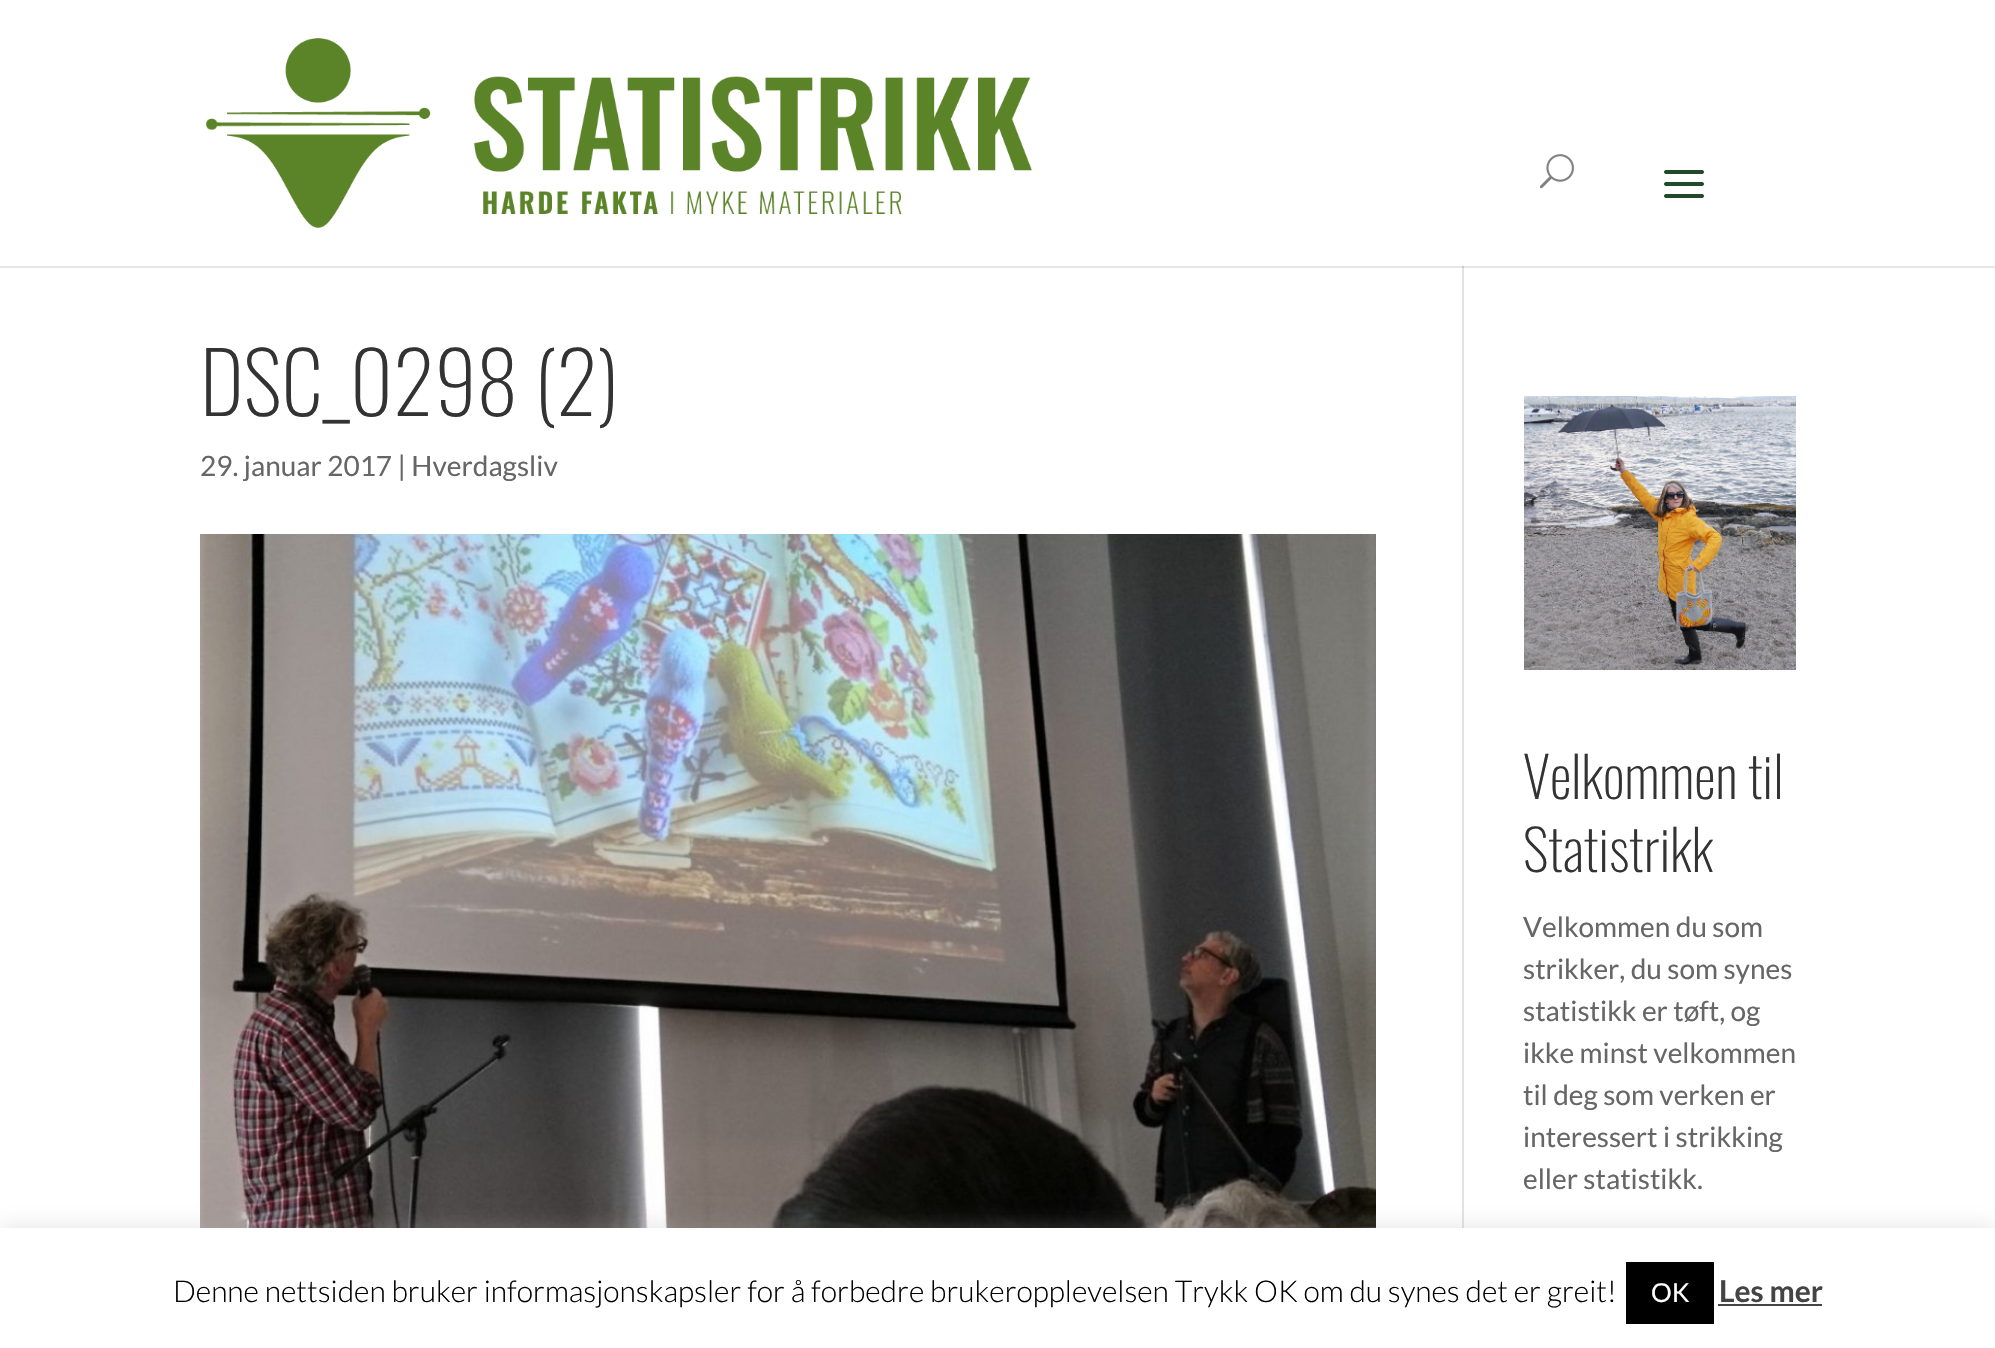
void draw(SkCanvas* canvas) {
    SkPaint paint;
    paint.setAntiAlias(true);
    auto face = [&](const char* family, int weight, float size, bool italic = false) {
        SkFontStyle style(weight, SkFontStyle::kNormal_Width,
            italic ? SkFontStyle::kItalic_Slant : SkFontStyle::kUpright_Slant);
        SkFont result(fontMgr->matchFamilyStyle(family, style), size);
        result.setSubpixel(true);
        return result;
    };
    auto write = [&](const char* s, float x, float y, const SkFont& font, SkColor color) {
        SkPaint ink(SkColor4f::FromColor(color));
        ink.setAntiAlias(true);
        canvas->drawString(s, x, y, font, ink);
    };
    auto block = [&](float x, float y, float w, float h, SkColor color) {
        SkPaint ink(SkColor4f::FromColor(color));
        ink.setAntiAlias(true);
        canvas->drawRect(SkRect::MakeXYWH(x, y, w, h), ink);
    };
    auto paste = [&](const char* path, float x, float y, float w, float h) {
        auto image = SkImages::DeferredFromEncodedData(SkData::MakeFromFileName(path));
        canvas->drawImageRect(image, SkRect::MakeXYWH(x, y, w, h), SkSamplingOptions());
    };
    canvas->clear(SK_ColorWHITE);
    block(0, 266, 1995, 2, SkColorSetRGB(230, 230, 230));
    paste("pic1.png", 206, 38, 826, 190);
    paste("pic2.png", 1539, 154, 35, 35);
    paste("pic3.png", 1664, 170, 40, 28);
    block(1462, 268, 2, 960, SkColorSetRGB(226, 226, 226));
    block(1462, 266, 2, 2, SkColorSetRGB(203, 203, 203));
    auto kFont1 = face("Oswald", 200, 84);
    write("DSC_0298 (2)", 200, 416, kFont1, SkColorSetRGB(51, 51, 51));
    auto kFont2 = face("Lato", 400, 28);
    write("29. januar 2017 | Hverdagsliv", 200, 476, kFont2, SkColorSetRGB(102, 102, 102));
    paste("pic4.png", 200, 534, 1176, 694);
    paste("pic5.png", 1524, 396, 272, 274);
    auto kFont3 = face("Oswald", 200, 56);
    write("Velkommen til", 1523, 799, kFont3, SkColorSetRGB(51, 51, 51));
    write("Statistrikk", 1523, 872, kFont3, SkColorSetRGB(51, 51, 51));
    write("Velkommen du som", 1523, 937, kFont2, SkColorSetRGB(102, 102, 102));
    write("strikker, du som synes", 1523, 979, kFont2, SkColorSetRGB(102, 102, 102));
    write("statistikk er tøft, og", 1523, 1021, kFont2, SkColorSetRGB(102, 102, 102));
    write("ikke minst velkommen", 1523, 1063, kFont2, SkColorSetRGB(102, 102, 102));
    write("til deg som verken er", 1523, 1105, kFont2, SkColorSetRGB(102, 102, 102));
    write("interessert i strikking", 1523, 1147, kFont2, SkColorSetRGB(102, 102, 102));
    write("eller statistikk.", 1523, 1189, kFont2, SkColorSetRGB(102, 102, 102));
    paint.setColor(SkColorSetARGB(77, 172, 171, 171));
    paint.setMaskFilter(SkMaskFilter::MakeBlur(kNormal_SkBlurStyle, 10));
    canvas->drawRect(SkRect::MakeXYWH(0, 1226, 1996, 120), paint);
    paint.setMaskFilter(nullptr);
    block(0, 1228, 1995, 120, SK_ColorWHITE);
    auto kFont4 = face("Lato", 300, 30);
    write("Denne nettsiden bruker informasjonskapsler for å forbedre brukeropplevelsen Trykk OK om du synes det er greit!", 173, 1302, kFont4, SK_ColorBLACK);
    block(1626, 1262, 88, 62, SK_ColorBLACK);
    auto kFont5 = face("Lato", 400, 26);
    write("OK", 1651, 1302, kFont5, SK_ColorWHITE);
    auto kFont6 = face("Lato", 700, 30);
    write("Les mer", 1719, 1302, kFont6, SkColorSetRGB(68, 68, 68));
    block(1718, 1304, 104, 2, SkColorSetRGB(68, 68, 68));
}
